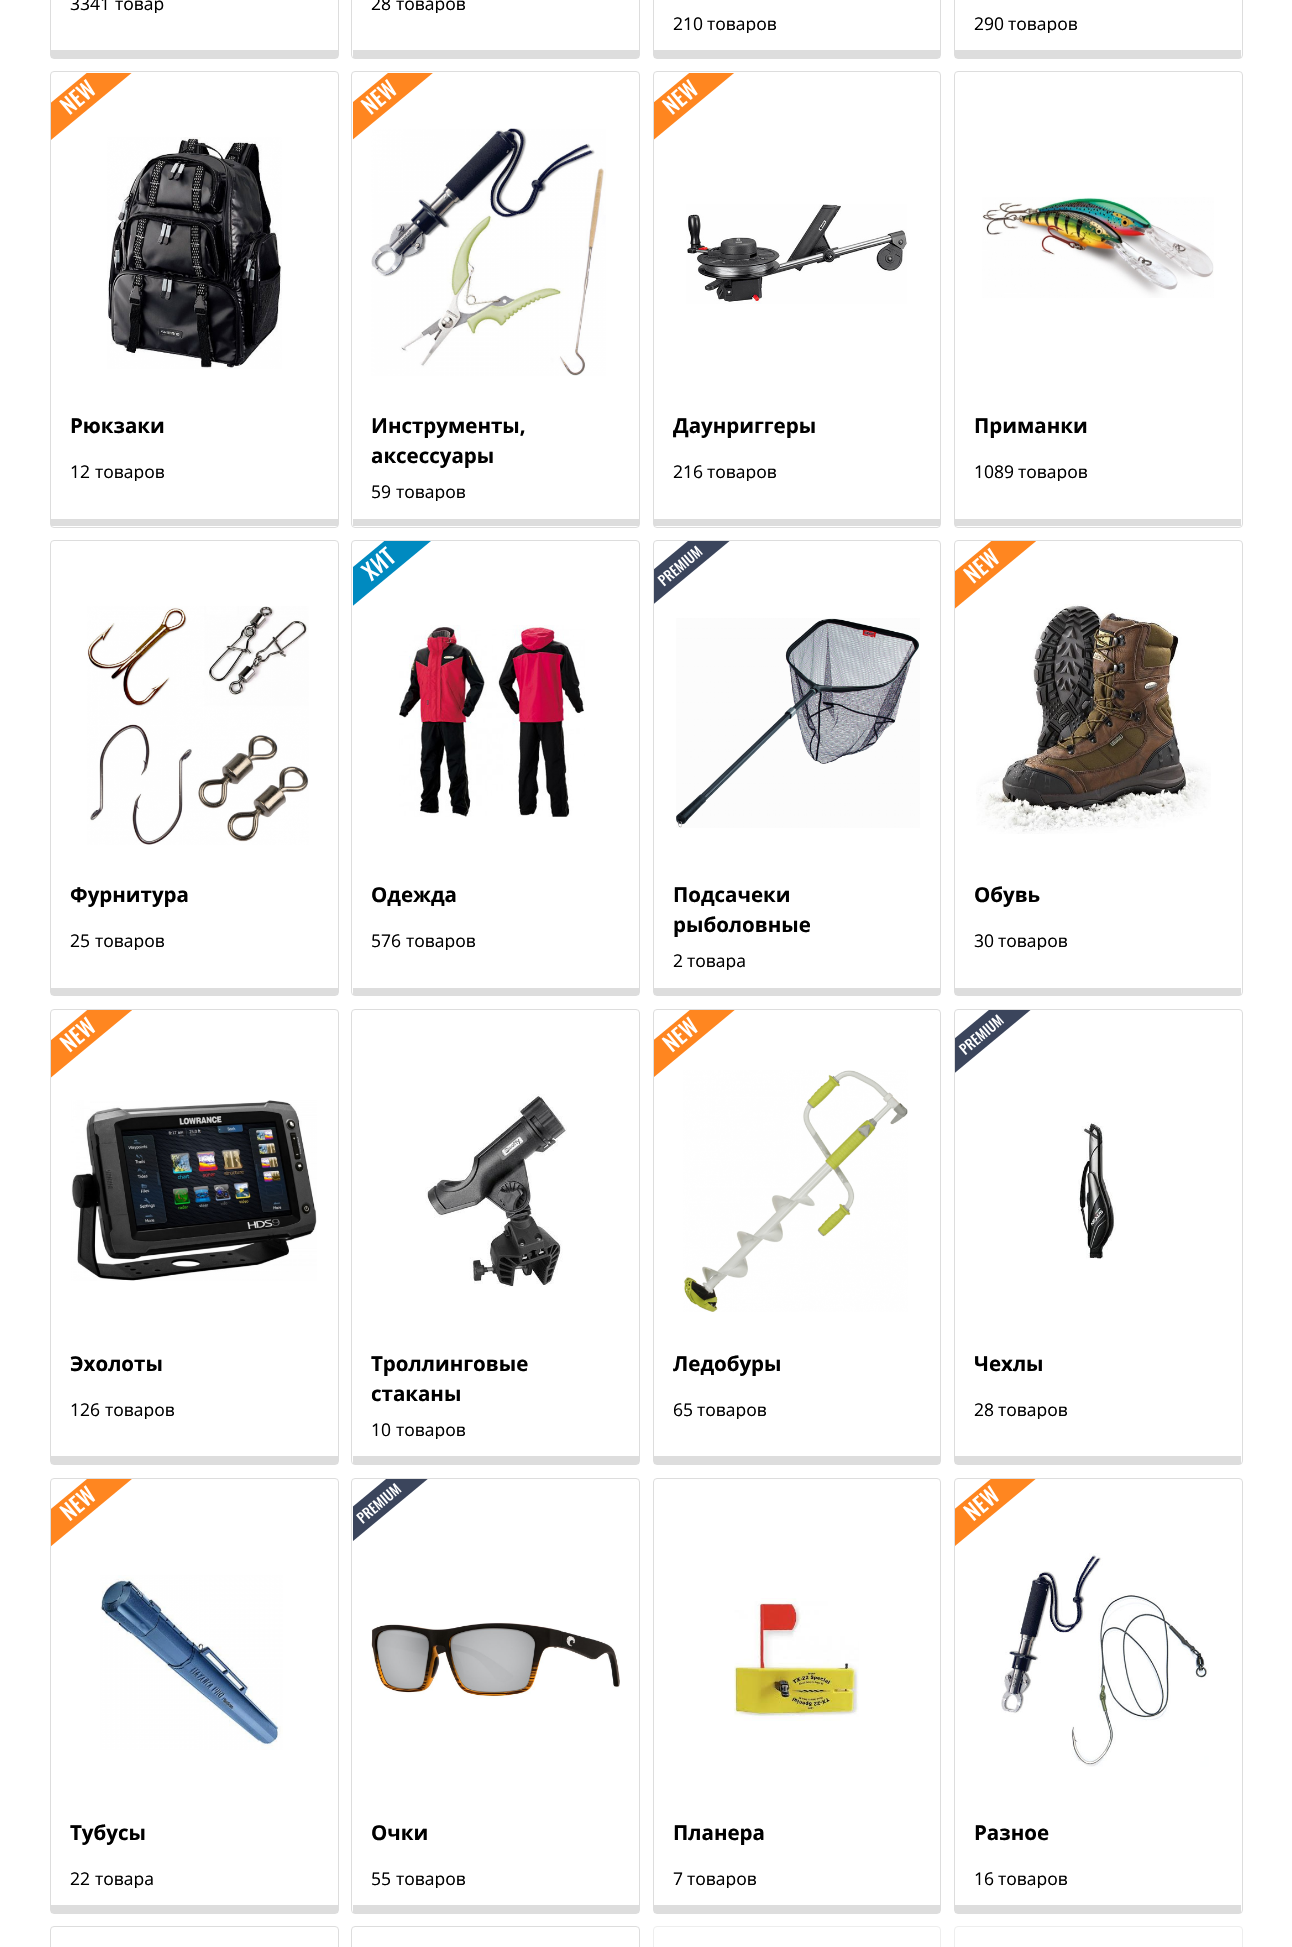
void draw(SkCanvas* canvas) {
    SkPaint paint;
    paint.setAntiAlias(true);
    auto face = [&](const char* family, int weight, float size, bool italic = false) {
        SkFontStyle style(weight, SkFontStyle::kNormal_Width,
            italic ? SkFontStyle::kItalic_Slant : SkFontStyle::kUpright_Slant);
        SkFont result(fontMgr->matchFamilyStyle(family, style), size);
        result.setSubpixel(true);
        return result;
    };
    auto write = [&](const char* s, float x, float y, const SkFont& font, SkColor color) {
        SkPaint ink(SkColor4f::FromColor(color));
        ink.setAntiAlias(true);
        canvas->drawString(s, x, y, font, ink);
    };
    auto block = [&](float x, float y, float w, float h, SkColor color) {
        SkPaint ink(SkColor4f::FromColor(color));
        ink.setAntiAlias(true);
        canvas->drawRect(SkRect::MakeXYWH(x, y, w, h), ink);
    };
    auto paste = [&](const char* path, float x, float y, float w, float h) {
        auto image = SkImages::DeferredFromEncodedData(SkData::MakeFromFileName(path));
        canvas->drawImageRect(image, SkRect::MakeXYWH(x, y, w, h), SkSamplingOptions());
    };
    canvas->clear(SK_ColorWHITE);
    paint.setStyle(SkPaint::kStroke_Style);
    paint.setStrokeWidth(1);
    paint.setColor(SkColorSetRGB(221, 221, 221));
    canvas->drawRoundRect(SkRect::MakeXYWH(50.5f, -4.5f, 288, 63), 3.5f, 3.5f, paint);
    auto kFont1 = face("Open Sans", 400, 17.5f);
    write("3341", 70, 10, kFont1, SK_ColorBLACK);
    canvas->save();
    canvas->clipRect(SkRect::MakeXYWH(70, 0, 249, 13));
    write("товар", 115, 10, kFont1, SK_ColorBLACK);
    canvas->restore();
    block(51, 50, 287, 8, SkColorSetRGB(221, 221, 221));
    canvas->drawRoundRect(SkRect::MakeXYWH(351.5f, -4.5f, 288, 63), 3.5f, 3.5f, paint);
    write("28", 371, 10, kFont1, SK_ColorBLACK);
    canvas->save();
    canvas->clipRect(SkRect::MakeXYWH(371, 0, 249, 13));
    write("товаров", 396, 10, kFont1, SK_ColorBLACK);
    canvas->restore();
    block(353, 50, 286, 8, SkColorSetRGB(221, 221, 221));
    canvas->drawRoundRect(SkRect::MakeXYWH(653.5f, -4.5f, 287, 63), 3.5f, 3.5f, paint);
    write("210", 673, 30, kFont1, SK_ColorBLACK);
    canvas->save();
    canvas->clipRect(SkRect::MakeXYWH(673, 0, 248, 33));
    write("товаров", 707, 30, kFont1, SK_ColorBLACK);
    canvas->restore();
    block(654, 50, 286, 8, SkColorSetRGB(221, 221, 221));
    canvas->drawRoundRect(SkRect::MakeXYWH(954.5f, -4.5f, 288, 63), 3.5f, 3.5f, paint);
    write("290", 974, 30, kFont1, SK_ColorBLACK);
    canvas->save();
    canvas->clipRect(SkRect::MakeXYWH(974, 0, 249, 33));
    write("товаров", 1008, 30, kFont1, SK_ColorBLACK);
    canvas->restore();
    block(955, 50, 286, 8, SkColorSetRGB(221, 221, 221));
    canvas->drawRoundRect(SkRect::MakeXYWH(50.5f, 71.5f, 288, 456), 3.5f, 3.5f, paint);
    paste("pic2.png", 107, 137, 175, 232);
    paste("pic1.png", 51, 73, 81, 67);
    auto kFont2 = face("Open Sans", 700, 20.5f);
    write("Рюкзаки", 70, 433, kFont2, SK_ColorBLACK);
    write("12", 70, 478, kFont1, SK_ColorBLACK);
    canvas->save();
    canvas->clipRect(SkRect::MakeXYWH(70, 98, 249, 383));
    write("товаров", 95, 478, kFont1, SK_ColorBLACK);
    canvas->restore();
    block(51, 519, 287, 7, SkColorSetRGB(221, 221, 221));
    canvas->drawRoundRect(SkRect::MakeXYWH(351.5f, 71.5f, 288, 456), 3.5f, 3.5f, paint);
    paste("pic4.png", 371, 128, 235, 248);
    paste("pic3.png", 353, 73, 80, 67);
    write("Инструменты,", 371, 433, kFont2, SK_ColorBLACK);
    write("аксессуары", 371, 463, kFont2, SK_ColorBLACK);
    write("59", 371, 498, kFont1, SK_ColorBLACK);
    canvas->save();
    canvas->clipRect(SkRect::MakeXYWH(371, 98, 249, 403));
    write("товаров", 396, 498, kFont1, SK_ColorBLACK);
    canvas->restore();
    block(353, 519, 286, 7, SkColorSetRGB(221, 221, 221));
    canvas->drawRoundRect(SkRect::MakeXYWH(653.5f, 71.5f, 287, 456), 3.5f, 3.5f, paint);
    paste("pic5.png", 654, 73, 80, 67);
    paste("pic6.png", 686, 204, 221, 100);
    canvas->save();
    canvas->clipRect(SkRect::MakeXYWH(673, 98, 248, 383));
    write("Даунpиггеры", 673, 433, kFont2, SK_ColorBLACK);
    canvas->restore();
    write("216", 673, 478, kFont1, SK_ColorBLACK);
    canvas->save();
    canvas->clipRect(SkRect::MakeXYWH(673, 98, 248, 383));
    write("товаров", 707, 478, kFont1, SK_ColorBLACK);
    canvas->restore();
    block(654, 519, 286, 7, SkColorSetRGB(221, 221, 221));
    canvas->drawRoundRect(SkRect::MakeXYWH(954.5f, 71.5f, 288, 456), 3.5f, 3.5f, paint);
    paste("pic7.png", 982, 197, 232, 101);
    write("Приманки", 974, 433, kFont2, SK_ColorBLACK);
    write("1089", 974, 478, kFont1, SK_ColorBLACK);
    canvas->save();
    canvas->clipRect(SkRect::MakeXYWH(974, 98, 249, 383));
    write("товаров", 1018, 478, kFont1, SK_ColorBLACK);
    canvas->restore();
    block(955, 519, 286, 7, SkColorSetRGB(221, 221, 221));
    canvas->drawRoundRect(SkRect::MakeXYWH(50.5f, 540.5f, 288, 455), 3.5f, 3.5f, paint);
    paste("pic8.png", 87, 606, 222, 239);
    write("Фурнитура", 70, 902, kFont2, SK_ColorBLACK);
    write("25", 70, 947, kFont1, SK_ColorBLACK);
    canvas->save();
    canvas->clipRect(SkRect::MakeXYWH(70, 566, 249, 384));
    write("товаров", 95, 947, kFont1, SK_ColorBLACK);
    canvas->restore();
    block(51, 988, 287, 7, SkColorSetRGB(221, 221, 221));
    canvas->drawRoundRect(SkRect::MakeXYWH(351.5f, 540.5f, 288, 455), 3.5f, 3.5f, paint);
    canvas->save();
    canvas->clipRect(SkRect::MakeXYWH(353, 541, 86, 74));
    paint.setStyle(SkPaint::kFill_Style);
    paint.setColor(SkColorSetRGB(0, 138, 192));
    canvas->drawPath(SkPathBuilder().moveTo(418, 513).lineTo(437, 536).lineTo(342, 615).lineTo(323, 592).close().detach(), paint);
    canvas->restore();
    paint.setColor(SK_ColorWHITE);
    canvas->drawPath(SkPathBuilder().moveTo(368, 572).lineTo(360, 567.5f).lineTo(362, 565.5f).lineTo(367.5f, 568.5f).lineTo(365.5f, 562.5f).lineTo(368, 561).lineTo(371, 570).lineTo(380, 574.5f).lineTo(377.5f, 576.5f).lineTo(371.5f, 573.5f).lineTo(374, 580).lineTo(371.5f, 581.5f).close().moveTo(369.5f, 559.5f).lineTo(371.5f, 558).lineTo(379, 566.5f).lineTo(375.5f, 554.5f).lineTo(377, 553).lineTo(389, 567).lineTo(386.5f, 569).lineTo(379, 560).lineTo(383, 572).lineTo(381, 573.5f).close().moveTo(382, 552).lineTo(380, 554).lineTo(378.5f, 552).lineTo(385.5f, 546).lineTo(387, 548).lineTo(384.5f, 550).lineTo(395, 562).lineTo(392.5f, 564).close().detach(), paint);
    paste("pic9.png", 399, 625, 186, 192);
    write("Одежда", 371, 902, kFont2, SK_ColorBLACK);
    write("576", 371, 947, kFont1, SK_ColorBLACK);
    canvas->save();
    canvas->clipRect(SkRect::MakeXYWH(371, 566, 249, 384));
    write("товаров", 406, 947, kFont1, SK_ColorBLACK);
    canvas->restore();
    block(353, 988, 286, 7, SkColorSetRGB(221, 221, 221));
    paint.setStyle(SkPaint::kStroke_Style);
    paint.setColor(SkColorSetRGB(221, 221, 221));
    canvas->drawRoundRect(SkRect::MakeXYWH(653.5f, 540.5f, 287, 455), 3.5f, 3.5f, paint);
    paste("pic10.png", 654, 541, 76, 63);
    paste("pic11.png", 676, 618, 244, 210);
    write("Подсачеки", 673, 902, kFont2, SK_ColorBLACK);
    write("рыболовные", 673, 932, kFont2, SK_ColorBLACK);
    write("2", 673, 967, kFont1, SK_ColorBLACK);
    canvas->save();
    canvas->clipRect(SkRect::MakeXYWH(673, 566, 248, 404));
    write("товара", 687, 967, kFont1, SK_ColorBLACK);
    canvas->restore();
    block(654, 988, 286, 7, SkColorSetRGB(221, 221, 221));
    canvas->drawRoundRect(SkRect::MakeXYWH(954.5f, 540.5f, 288, 455), 3.5f, 3.5f, paint);
    paste("pic13.png", 976, 604, 235, 230);
    paste("pic12.png", 955, 541, 81, 68);
    write("Обувь", 974, 902, kFont2, SK_ColorBLACK);
    write("30", 974, 947, kFont1, SK_ColorBLACK);
    canvas->save();
    canvas->clipRect(SkRect::MakeXYWH(974, 566, 249, 384));
    write("товаров", 998, 947, kFont1, SK_ColorBLACK);
    canvas->restore();
    block(955, 988, 286, 7, SkColorSetRGB(221, 221, 221));
    canvas->drawRoundRect(SkRect::MakeXYWH(50.5f, 1009.5f, 288, 455), 3.5f, 3.5f, paint);
    paste("pic14.png", 51, 1010, 81, 68);
    paste("pic15.png", 71, 1100, 246, 181);
    write("Эхолоты", 70, 1371, kFont2, SK_ColorBLACK);
    write("126", 70, 1416, kFont1, SK_ColorBLACK);
    canvas->save();
    canvas->clipRect(SkRect::MakeXYWH(70, 1035, 249, 384));
    write("товаров", 105, 1416, kFont1, SK_ColorBLACK);
    canvas->restore();
    block(51, 1456, 287, 8, SkColorSetRGB(221, 221, 221));
    canvas->drawRoundRect(SkRect::MakeXYWH(351.5f, 1009.5f, 288, 455), 3.5f, 3.5f, paint);
    paste("pic16.png", 425, 1094, 142, 193);
    write("Троллинговые", 371, 1371, kFont2, SK_ColorBLACK);
    write("стаканы", 371, 1401, kFont2, SK_ColorBLACK);
    write("10", 371, 1436, kFont1, SK_ColorBLACK);
    canvas->save();
    canvas->clipRect(SkRect::MakeXYWH(371, 1035, 249, 404));
    write("товаров", 396, 1436, kFont1, SK_ColorBLACK);
    canvas->restore();
    block(353, 1456, 286, 8, SkColorSetRGB(221, 221, 221));
    canvas->drawRoundRect(SkRect::MakeXYWH(653.5f, 1009.5f, 287, 455), 3.5f, 3.5f, paint);
    paste("pic18.png", 683, 1070, 225, 242);
    paste("pic17.png", 654, 1010, 81, 67);
    canvas->save();
    canvas->clipRect(SkRect::MakeXYWH(673, 1035, 248, 384));
    write("Ледобуры", 673, 1371, kFont2, SK_ColorBLACK);
    canvas->restore();
    write("65", 673, 1416, kFont1, SK_ColorBLACK);
    canvas->save();
    canvas->clipRect(SkRect::MakeXYWH(673, 1035, 248, 384));
    write("товаров", 697, 1416, kFont1, SK_ColorBLACK);
    canvas->restore();
    block(654, 1456, 286, 8, SkColorSetRGB(221, 221, 221));
    canvas->drawRoundRect(SkRect::MakeXYWH(954.5f, 1009.5f, 288, 455), 3.5f, 3.5f, paint);
    paste("pic19.png", 955, 1010, 76, 63);
    paste("pic20.png", 1078, 1122, 38, 137);
    write("Чехлы", 974, 1371, kFont2, SK_ColorBLACK);
    write("28", 974, 1416, kFont1, SK_ColorBLACK);
    canvas->save();
    canvas->clipRect(SkRect::MakeXYWH(974, 1035, 249, 384));
    write("товаров", 998, 1416, kFont1, SK_ColorBLACK);
    canvas->restore();
    block(955, 1456, 286, 8, SkColorSetRGB(221, 221, 221));
    canvas->drawRoundRect(SkRect::MakeXYWH(50.5f, 1478.5f, 288, 435), 3.5f, 3.5f, paint);
    paste("pic21.png", 51, 1479, 81, 68);
    paste("pic22.png", 100, 1575, 183, 175);
    write("Тубусы", 70, 1840, kFont2, SK_ColorBLACK);
    write("22", 70, 1885, kFont1, SK_ColorBLACK);
    canvas->save();
    canvas->clipRect(SkRect::MakeXYWH(70, 1504, 249, 384));
    write("товара", 95, 1885, kFont1, SK_ColorBLACK);
    canvas->restore();
    block(51, 1905, 287, 8, SkColorSetRGB(221, 221, 221));
    canvas->drawRoundRect(SkRect::MakeXYWH(351.5f, 1478.5f, 288, 435), 3.5f, 3.5f, paint);
    paste("pic23.png", 353, 1479, 75, 62);
    paste("pic24.png", 371, 1622, 249, 77);
    write("Очки", 371, 1840, kFont2, SK_ColorBLACK);
    write("55", 371, 1885, kFont1, SK_ColorBLACK);
    canvas->save();
    canvas->clipRect(SkRect::MakeXYWH(371, 1504, 249, 384));
    write("товаров", 396, 1885, kFont1, SK_ColorBLACK);
    canvas->restore();
    block(353, 1905, 286, 8, SkColorSetRGB(221, 221, 221));
    canvas->drawRoundRect(SkRect::MakeXYWH(653.5f, 1478.5f, 287, 435), 3.5f, 3.5f, paint);
    paste("pic25.png", 734, 1598, 125, 123);
    write("Планера", 673, 1840, kFont2, SK_ColorBLACK);
    write("7", 673, 1885, kFont1, SK_ColorBLACK);
    canvas->save();
    canvas->clipRect(SkRect::MakeXYWH(673, 1504, 248, 384));
    write("товаров", 687, 1885, kFont1, SK_ColorBLACK);
    canvas->restore();
    block(654, 1905, 286, 8, SkColorSetRGB(221, 221, 221));
    canvas->drawRoundRect(SkRect::MakeXYWH(954.5f, 1478.5f, 288, 435), 3.5f, 3.5f, paint);
    paste("pic26.png", 955, 1479, 81, 67);
    paste("pic27.png", 1001, 1553, 208, 214);
    write("Разное", 974, 1840, kFont2, SK_ColorBLACK);
    write("16", 974, 1885, kFont1, SK_ColorBLACK);
    canvas->save();
    canvas->clipRect(SkRect::MakeXYWH(974, 1504, 249, 384));
    write("товаров", 998, 1885, kFont1, SK_ColorBLACK);
    canvas->restore();
    block(955, 1905, 286, 8, SkColorSetRGB(221, 221, 221));
    canvas->drawRoundRect(SkRect::MakeXYWH(50.5f, 1926.5f, 288, 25), 3.5f, 3.5f, paint);
    canvas->drawRoundRect(SkRect::MakeXYWH(351.5f, 1926.5f, 288, 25), 3.5f, 3.5f, paint);
    paint.setColor(SkColorSetRGB(238, 238, 238));
    canvas->drawRoundRect(SkRect::MakeXYWH(653.5f, 1926.5f, 287, 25), 3.5f, 3.5f, paint);
    canvas->drawRoundRect(SkRect::MakeXYWH(954.5f, 1926.5f, 288, 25), 3.5f, 3.5f, paint);
}
